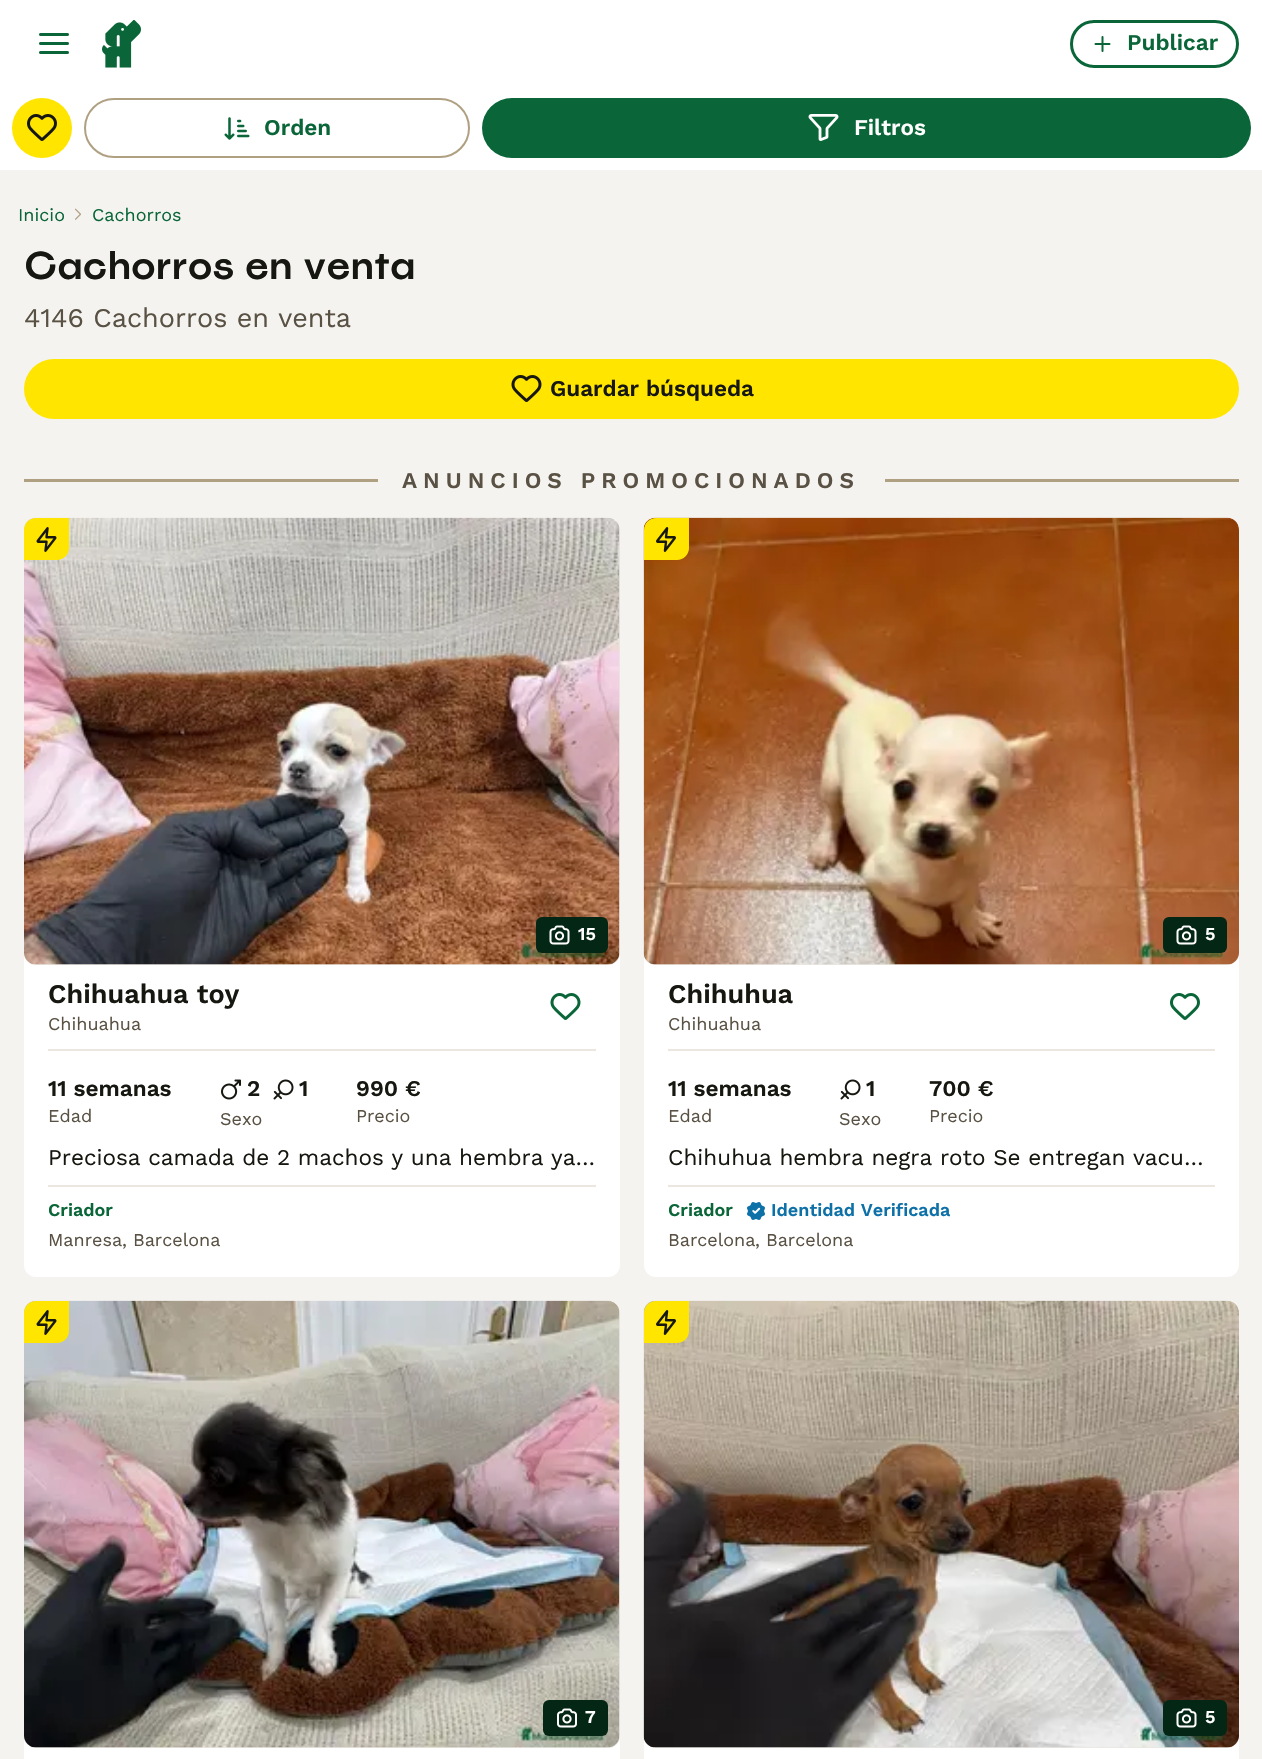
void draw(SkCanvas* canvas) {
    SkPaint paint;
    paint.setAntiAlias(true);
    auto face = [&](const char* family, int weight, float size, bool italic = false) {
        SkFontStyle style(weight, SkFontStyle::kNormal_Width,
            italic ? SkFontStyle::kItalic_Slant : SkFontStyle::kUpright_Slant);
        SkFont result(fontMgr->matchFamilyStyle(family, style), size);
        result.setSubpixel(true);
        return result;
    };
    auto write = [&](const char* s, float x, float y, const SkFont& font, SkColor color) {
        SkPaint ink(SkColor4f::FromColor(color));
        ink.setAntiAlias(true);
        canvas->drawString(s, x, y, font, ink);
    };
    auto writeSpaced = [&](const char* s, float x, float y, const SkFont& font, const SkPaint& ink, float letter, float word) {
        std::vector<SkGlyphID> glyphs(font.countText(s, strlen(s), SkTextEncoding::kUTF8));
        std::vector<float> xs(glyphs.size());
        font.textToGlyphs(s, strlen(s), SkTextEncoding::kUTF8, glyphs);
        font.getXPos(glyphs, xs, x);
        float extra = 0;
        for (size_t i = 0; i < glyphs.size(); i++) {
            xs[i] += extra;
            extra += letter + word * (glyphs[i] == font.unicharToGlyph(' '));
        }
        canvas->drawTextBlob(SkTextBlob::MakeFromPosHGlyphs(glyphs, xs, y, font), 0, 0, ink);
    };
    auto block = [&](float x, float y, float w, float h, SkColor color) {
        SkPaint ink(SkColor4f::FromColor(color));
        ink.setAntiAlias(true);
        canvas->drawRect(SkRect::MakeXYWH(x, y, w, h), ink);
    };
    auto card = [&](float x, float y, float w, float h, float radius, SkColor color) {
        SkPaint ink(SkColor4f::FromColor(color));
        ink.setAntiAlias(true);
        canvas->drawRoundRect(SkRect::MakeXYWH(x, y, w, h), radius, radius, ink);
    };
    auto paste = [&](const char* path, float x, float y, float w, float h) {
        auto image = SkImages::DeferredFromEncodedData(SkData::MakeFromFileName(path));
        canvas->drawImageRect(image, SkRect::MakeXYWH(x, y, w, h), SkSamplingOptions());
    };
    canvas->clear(SkColorSetRGB(245, 243, 240));
    block(0, 0, 1262, 170, SK_ColorWHITE);
    paste("pic1.png", 39, 33, 30, 21);
    paste("pic2.png", 102, 20, 39, 48);
    paint.setStyle(SkPaint::kStroke_Style);
    paint.setStrokeWidth(3);
    paint.setColor(SkColorSetRGB(10, 102, 56));
    canvas->drawRoundRect(SkRect::MakeXYWH(1071.5f, 21.5f, 166, 45), 22.5f, 22.5f, paint);
    paste("pic3.png", 1094, 36, 17, 16);
    auto kFont1 = face("Work Sans", 600, 22.5f);
    write("Publicar", 1127, 50, kFont1, SkColorSetRGB(10, 102, 56));
    paint.setStyle(SkPaint::kFill_Style);
    paint.setColor(SkColorSetRGB(255, 229, 0));
    canvas->drawCircle(42, 128, 30, paint);
    paste("pic4.png", 27, 114, 30, 27);
    paint.setStyle(SkPaint::kStroke_Style);
    paint.setStrokeWidth(2);
    paint.setColor(SkColorSetRGB(176, 160, 130));
    canvas->drawRoundRect(SkRect::MakeXYWH(85, 99, 384, 58), 29, 29, paint);
    paste("pic5.png", 224, 117, 26, 23);
    write("Orden", 264, 135, kFont1, SkColorSetRGB(10, 102, 56));
    card(482, 98, 769, 60, 30, SkColorSetRGB(10, 102, 56));
    paste("pic6.png", 808, 114, 31, 27);
    write("Filtros", 854, 135, kFont1, SK_ColorWHITE);
    auto kFont2 = face("Work Sans", 400, 18);
    write("Inicio", 18, 221, kFont2, SkColorSetRGB(10, 102, 56));
    paste("pic7.png", 75, 208, 6, 12);
    write("Cachorros", 92, 221, kFont2, SkColorSetRGB(10, 102, 56));
    auto kFont3 = face("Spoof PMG", 500, 39);
    write("Cachorros en venta", 24, 279, kFont3, SkColorSetRGB(23, 23, 17));
    auto kFont4 = face("Work Sans", 400, 27);
    write("4146 Cachorros en venta", 24, 327, kFont4, SkColorSetRGB(89, 81, 67));
    card(24, 359, 1215, 60, 30, SkColorSetRGB(255, 229, 0));
    paste("pic8.png", 511, 375, 31, 27);
    write("Guardar búsqueda", 550, 396, kFont1, SkColorSetRGB(23, 23, 17));
    block(24, 479, 1215, 3, SkColorSetRGB(176, 160, 130));
    block(378, 479, 507, 3, SkColorSetRGB(245, 243, 240));
    paint.setStyle(SkPaint::kFill_Style);
    paint.setColor(SkColorSetRGB(89, 81, 67));
    writeSpaced("ANUNCIOS PROMOCIONADOS", 402, 488, kFont1, paint, 6, 0);
    card(24, 518, 596, 759, 12, SK_ColorWHITE);
    card(24, 518, 596, 447, 12, SkColorSetRGB(235, 230, 223));
    paste("pic9.png", 24, 517, 596, 448);
    paint.setColor(SkColorSetRGB(255, 229, 0));
    canvas->drawPath(SkPathBuilder().moveTo(36, 518).lineTo(69, 518).lineTo(69, 548).cubicTo(69, 554.5f, 63.5f, 560, 57, 560).lineTo(24, 560).lineTo(24, 530).cubicTo(24, 523.5f, 29.5f, 518, 36, 518).close().detach(), paint);
    paste("pic10.png", 36, 527, 21, 25);
    card(536, 917, 72, 36, 6, SkColorSetRGB(4, 38, 21));
    paste("pic11.png", 549, 925, 21, 20);
    auto kFont5 = face("Work Sans", 600, 18);
    write("15", 578, 940, kFont5, SK_ColorWHITE);
    auto kFont6 = face("Work Sans", 600, 27);
    write("Chihuahua toy", 48, 1003, kFont6, SkColorSetRGB(23, 23, 17));
    write("Chihuahua", 48, 1030, kFont2, SkColorSetRGB(89, 81, 67));
    paste("pic12.png", 550, 993, 31, 27);
    block(48, 1049, 548, 2, SkColorSetRGB(235, 230, 223));
    block(48, 1185, 548, 2, SkColorSetRGB(235, 230, 223));
    write("11 semanas", 48, 1096, kFont1, SkColorSetRGB(23, 23, 17));
    write("Edad", 48, 1122, kFont2, SkColorSetRGB(89, 81, 67));
    paste("pic13.png", 221, 1079, 20, 21);
    write("2", 247, 1096, kFont1, SkColorSetRGB(23, 23, 17));
    paste("pic14.png", 273, 1079, 21, 21);
    write("1", 299, 1096, kFont1, SkColorSetRGB(23, 23, 17));
    write("Sexo", 220, 1125, kFont2, SkColorSetRGB(89, 81, 67));
    write("990 €", 356, 1096, kFont1, SkColorSetRGB(23, 23, 17));
    write("Precio", 356, 1122, kFont2, SkColorSetRGB(89, 81, 67));
    auto kFont7 = face("Work Sans", 400, 22.5f);
    write("Preciosa camada de 2 machos y una hembra ya…", 48, 1165, kFont7, SkColorSetRGB(23, 23, 17));
    write("Criador", 48, 1216, kFont5, SkColorSetRGB(10, 102, 56));
    write("Manresa", 48, 1246, kFont2, SkColorSetRGB(89, 81, 67));
    write(", Barcelona", 122, 1246, kFont2, SkColorSetRGB(89, 81, 67));
    card(644, 518, 595, 759, 12, SK_ColorWHITE);
    card(644, 518, 595, 447, 12, SkColorSetRGB(235, 230, 223));
    paste("pic15.png", 643, 517, 596, 448);
    canvas->drawPath(SkPathBuilder().moveTo(656, 518).lineTo(689, 518).lineTo(689, 548).cubicTo(689, 554.5f, 683.5f, 560, 677, 560).lineTo(644, 560).lineTo(644, 530).cubicTo(644, 523.5f, 649.5f, 518, 656, 518).close().detach(), paint);
    paste("pic16.png", 656, 527, 20, 25);
    card(1163, 917, 64, 36, 6, SkColorSetRGB(4, 38, 21));
    paste("pic11.png", 1176, 925, 21, 20);
    write("5", 1205, 940, kFont5, SK_ColorWHITE);
    write("Chihuhua", 668, 1003, kFont6, SkColorSetRGB(23, 23, 17));
    write("Chihuahua", 668, 1030, kFont2, SkColorSetRGB(89, 81, 67));
    paste("pic17.png", 1170, 993, 30, 27);
    block(668, 1049, 547, 2, SkColorSetRGB(235, 230, 223));
    block(668, 1185, 547, 2, SkColorSetRGB(235, 230, 223));
    write("11 semanas", 668, 1096, kFont1, SkColorSetRGB(23, 23, 17));
    write("Edad", 668, 1122, kFont2, SkColorSetRGB(89, 81, 67));
    paste("pic14.png", 840, 1079, 21, 21);
    write("1", 866, 1096, kFont1, SkColorSetRGB(23, 23, 17));
    write("Sexo", 839, 1125, kFont2, SkColorSetRGB(89, 81, 67));
    write("700 €", 929, 1096, kFont1, SkColorSetRGB(23, 23, 17));
    write("Precio", 929, 1122, kFont2, SkColorSetRGB(89, 81, 67));
    write("Chihuhua hembra negra roto Se entregan vacu…", 668, 1165, kFont7, SkColorSetRGB(23, 23, 17));
    write("Criador", 668, 1216, kFont5, SkColorSetRGB(10, 102, 56));
    paste("pic18.png", 747, 1202, 18, 18);
    write("Identidad Verificada", 771, 1216, kFont5, SkColorSetRGB(13, 113, 168));
    write("Barcelona", 668, 1246, kFont2, SkColorSetRGB(89, 81, 67));
    write(", Barcelona", 755, 1246, kFont2, SkColorSetRGB(89, 81, 67));
    card(24, 1301, 596, 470, 12, SK_ColorWHITE);
    card(24, 1301, 596, 447, 12, SkColorSetRGB(235, 230, 223));
    paste("pic19.png", 24, 1300, 596, 448);
    canvas->drawPath(SkPathBuilder().moveTo(36, 1301).lineTo(69, 1301).lineTo(69, 1331).cubicTo(69, 1337.5f, 63.5f, 1343, 57, 1343).lineTo(24, 1343).lineTo(24, 1313).cubicTo(24, 1306.5f, 29.5f, 1301, 36, 1301).close().detach(), paint);
    paste("pic10.png", 36, 1310, 21, 25);
    card(543, 1700, 65, 36, 6, SkColorSetRGB(4, 38, 21));
    paste("pic20.png", 557, 1708, 20, 20);
    write("7", 585, 1723, kFont5, SK_ColorWHITE);
    card(644, 1301, 595, 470, 12, SK_ColorWHITE);
    card(644, 1301, 595, 447, 12, SkColorSetRGB(235, 230, 223));
    paste("pic21.png", 643, 1300, 596, 448);
    canvas->drawPath(SkPathBuilder().moveTo(656, 1301).lineTo(689, 1301).lineTo(689, 1331).cubicTo(689, 1337.5f, 683.5f, 1343, 677, 1343).lineTo(644, 1343).lineTo(644, 1313).cubicTo(644, 1306.5f, 649.5f, 1301, 656, 1301).close().detach(), paint);
    paste("pic16.png", 656, 1310, 20, 25);
    card(1163, 1700, 64, 36, 6, SkColorSetRGB(4, 38, 21));
    paste("pic11.png", 1176, 1708, 21, 20);
    write("5", 1205, 1723, kFont5, SK_ColorWHITE);
}
